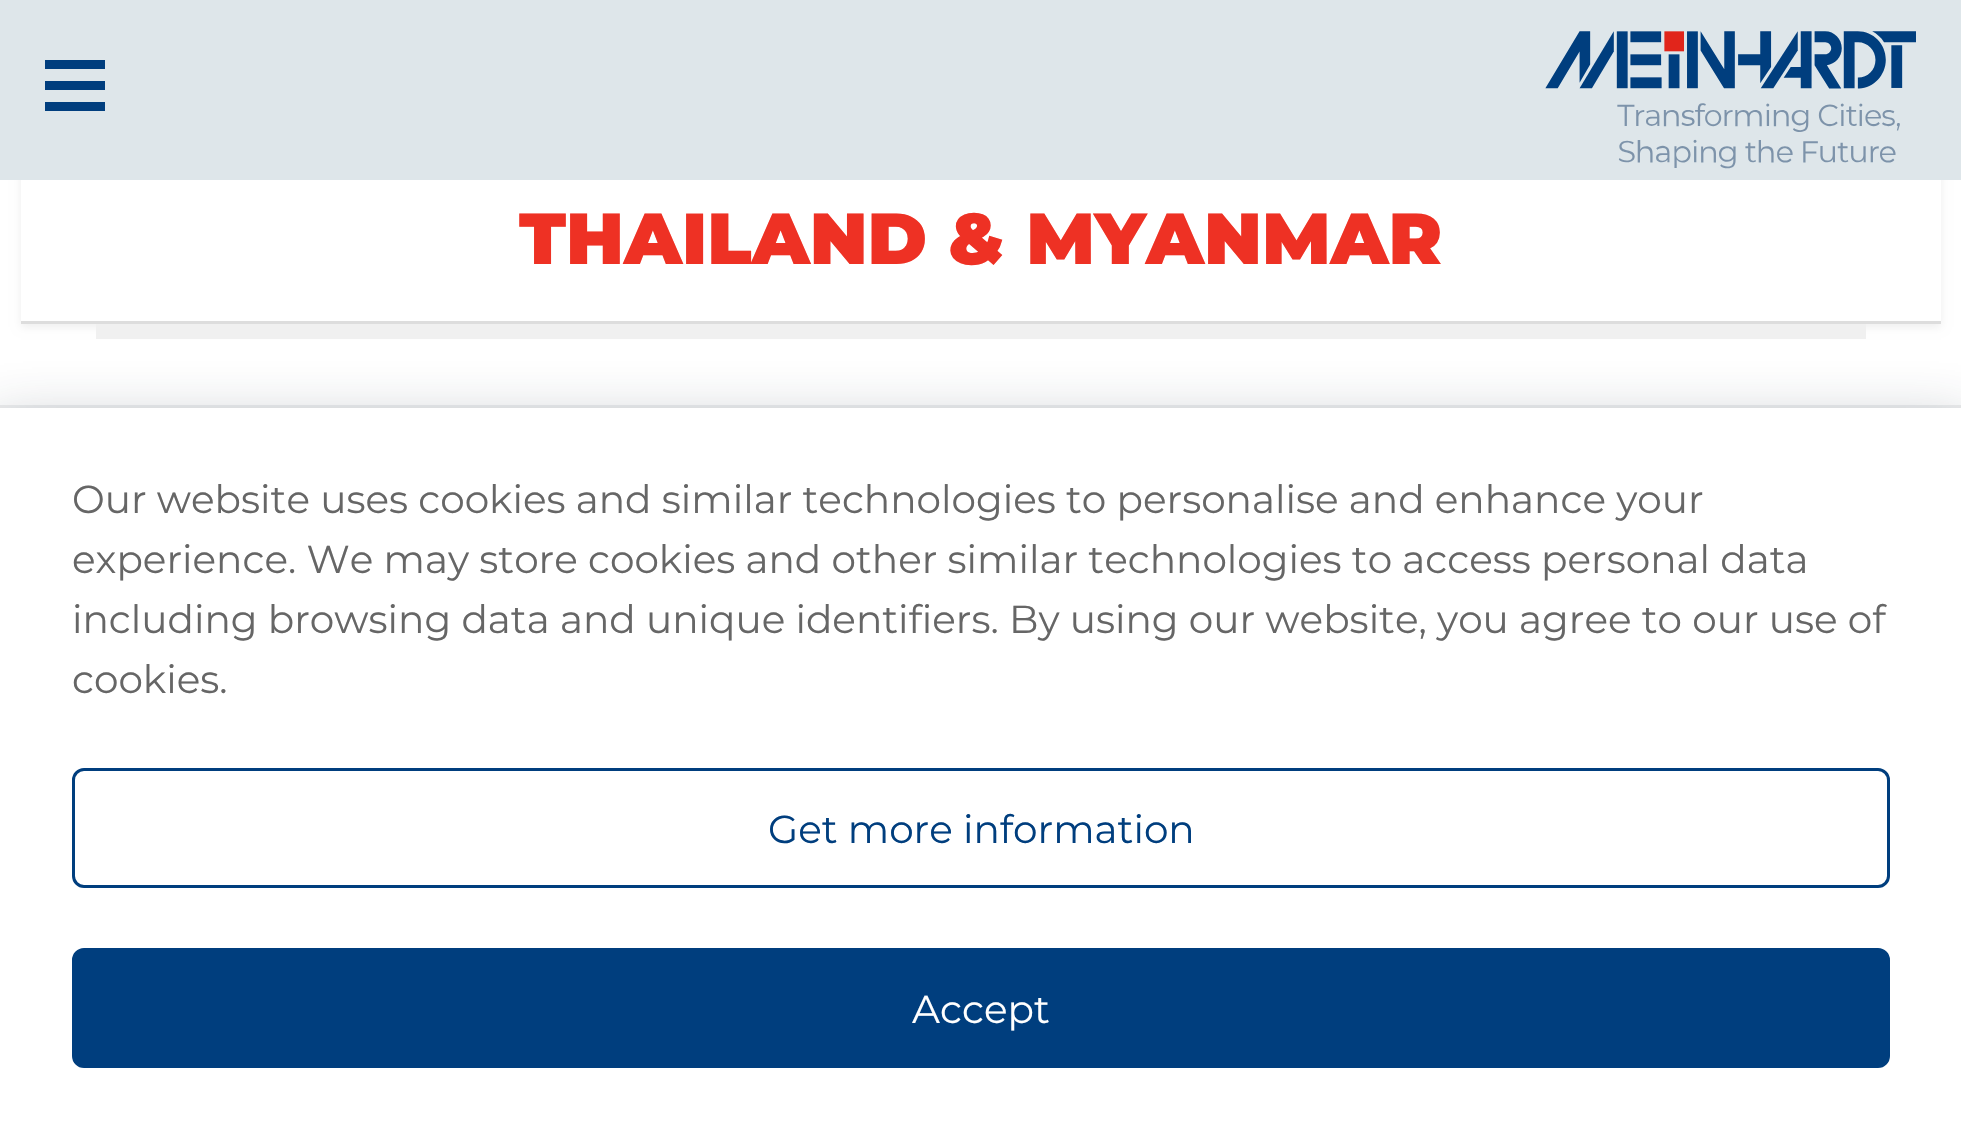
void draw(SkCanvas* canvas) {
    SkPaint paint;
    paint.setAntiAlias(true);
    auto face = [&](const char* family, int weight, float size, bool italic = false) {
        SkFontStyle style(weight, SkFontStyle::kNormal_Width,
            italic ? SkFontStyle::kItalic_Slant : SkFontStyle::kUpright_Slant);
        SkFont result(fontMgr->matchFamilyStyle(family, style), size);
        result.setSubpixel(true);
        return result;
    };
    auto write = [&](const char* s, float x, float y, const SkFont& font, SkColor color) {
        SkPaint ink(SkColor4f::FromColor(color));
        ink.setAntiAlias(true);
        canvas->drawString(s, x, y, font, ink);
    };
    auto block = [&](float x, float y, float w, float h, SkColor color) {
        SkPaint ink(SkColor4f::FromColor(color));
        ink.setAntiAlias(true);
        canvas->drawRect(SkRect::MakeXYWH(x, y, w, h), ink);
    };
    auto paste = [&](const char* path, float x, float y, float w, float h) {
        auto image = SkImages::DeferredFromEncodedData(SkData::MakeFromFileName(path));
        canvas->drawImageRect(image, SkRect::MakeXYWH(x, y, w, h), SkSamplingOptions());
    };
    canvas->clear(SK_ColorWHITE);
    canvas->save();
    canvas->clipPath(SkPathBuilder(SkPathFillType::kEvenOdd).moveTo(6, 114).lineTo(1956, 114).lineTo(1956, 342).lineTo(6, 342).close().moveTo(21, 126).lineTo(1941, 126).lineTo(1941, 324).lineTo(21, 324).close().detach(), true);
    paint.setColor(SkColorSetRGB(238, 238, 238));
    paint.setMaskFilter(SkMaskFilter::MakeBlur(kNormal_SkBlurStyle, 4.5f));
    canvas->drawRect(SkRect::MakeXYWH(21, 129, 1920, 198), paint);
    paint.setMaskFilter(nullptr);
    canvas->restore();
    block(0, 0, 1961, 180, SkColorSetRGB(222, 230, 234));
    block(45, 60, 60, 9, SkColorSetRGB(0, 62, 126));
    block(45, 81, 60, 9, SkColorSetRGB(0, 62, 126));
    block(45, 102, 60, 9, SkColorSetRGB(0, 62, 126));
    block(21, 321, 1920, 3, SkColorSetRGB(221, 221, 221));
    paste("pic1.png", 1545, 31, 371, 138);
    auto kFont1 = face("Montserrat", 900, 72);
    write("THAILAND & MYANMAR", 519, 264, kFont1, SkColorSetRGB(238, 49, 36));
    block(96, 324, 1770, 15, SkColorSetRGB(240, 240, 240));
    paint.setColor(SkColorSetARGB(79, 36, 47, 66));
    paint.setMaskFilter(SkMaskFilter::MakeBlur(kNormal_SkBlurStyle, 30));
    canvas->drawRect(SkRect::MakeXYWH(-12, 426, 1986, 684), paint);
    paint.setMaskFilter(nullptr);
    paint.setStyle(SkPaint::kStroke_Style);
    paint.setStrokeWidth(3);
    paint.setColor(SkColorSetARGB(20, 36, 47, 66));
    canvas->drawRect(SkRect::MakeXYWH(-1.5f, 406.5f, 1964, 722), paint);
    block(0, 408, 1961, 719, SK_ColorWHITE);
    auto kFont2 = face("Montserrat", 400, 39);
    write("Our website uses cookies and similar technologies to personalise and enhance your", 72, 513, kFont2, SkColorSetRGB(102, 102, 102));
    write("experience. We may store cookies and other similar technologies to access personal data", 72, 573, kFont2, SkColorSetRGB(102, 102, 102));
    write("including browsing data and unique identifiers. By using our website, you agree to our use of", 72, 633, kFont2, SkColorSetRGB(102, 102, 102));
    write("cookies.", 72, 693, kFont2, SkColorSetRGB(102, 102, 102));
    paint.setColor(SkColorSetRGB(0, 62, 126));
    canvas->drawRoundRect(SkRect::MakeXYWH(73.5f, 769.5f, 1815, 117), 10.5f, 10.5f, paint);
    write("Get more information", 768, 843, kFont2, SkColorSetRGB(0, 62, 126));
    paint.setStyle(SkPaint::kFill_Style);
    canvas->drawRoundRect(SkRect::MakeXYWH(73.5f, 949.5f, 1815, 117), 10.5f, 10.5f, paint);
    paint.setStyle(SkPaint::kStroke_Style);
    canvas->drawRoundRect(SkRect::MakeXYWH(73.5f, 949.5f, 1815, 117), 10.5f, 10.5f, paint);
    write("Accept", 912, 1023, kFont2, SK_ColorWHITE);
}
